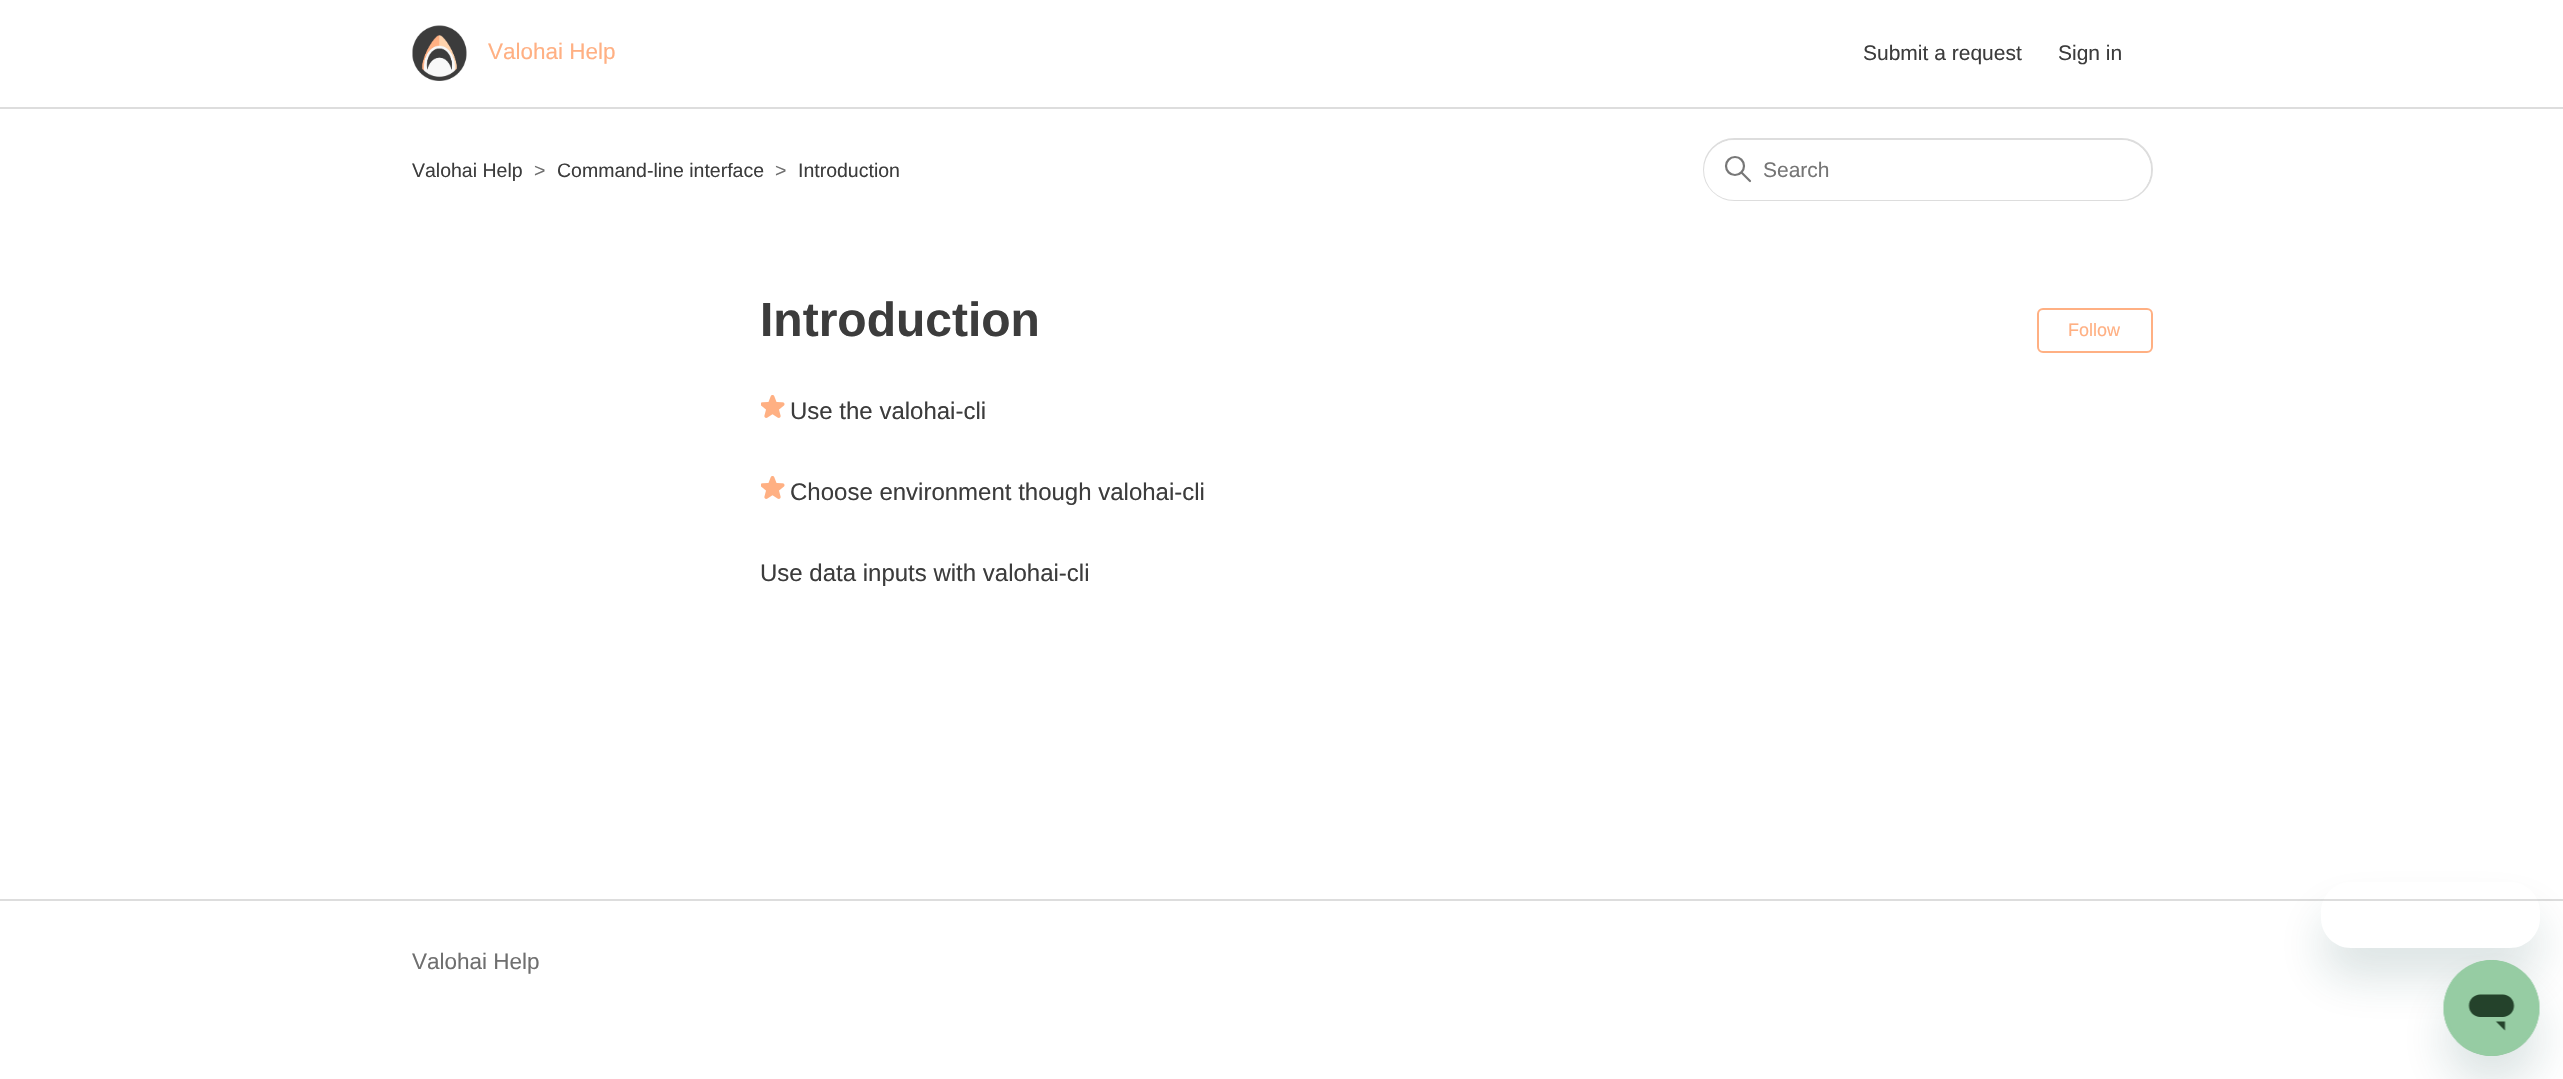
void draw(SkCanvas* canvas) {
    SkPaint paint;
    paint.setAntiAlias(true);
    auto face = [&](const char* family, int weight, float size, bool italic = false) {
        SkFontStyle style(weight, SkFontStyle::kNormal_Width,
            italic ? SkFontStyle::kItalic_Slant : SkFontStyle::kUpright_Slant);
        SkFont result(fontMgr->matchFamilyStyle(family, style), size);
        result.setSubpixel(true);
        return result;
    };
    auto write = [&](const char* s, float x, float y, const SkFont& font, SkColor color) {
        SkPaint ink(SkColor4f::FromColor(color));
        ink.setAntiAlias(true);
        canvas->drawString(s, x, y, font, ink);
    };
    auto block = [&](float x, float y, float w, float h, SkColor color) {
        SkPaint ink(SkColor4f::FromColor(color));
        ink.setAntiAlias(true);
        canvas->drawRect(SkRect::MakeXYWH(x, y, w, h), ink);
    };
    auto card = [&](float x, float y, float w, float h, float radius, SkColor color) {
        SkPaint ink(SkColor4f::FromColor(color));
        ink.setAntiAlias(true);
        canvas->drawRoundRect(SkRect::MakeXYWH(x, y, w, h), radius, radius, ink);
    };
    auto paste = [&](const char* path, float x, float y, float w, float h) {
        auto image = SkImages::DeferredFromEncodedData(SkData::MakeFromFileName(path));
        canvas->drawImageRect(image, SkRect::MakeXYWH(x, y, w, h), SkSamplingOptions());
    };
    canvas->clear(SK_ColorWHITE);
    paste("pic1.png", 412, 25, 55, 56);
    auto kFont1 = face("Liberation Sans", 400, 22.5f);
    write("Valohai Help", 488, 59, kFont1, SkColorSetRGB(255, 176, 131));
    auto kFont2 = face("Liberation Sans", 400, 21);
    write("Submit a request", 1863, 60, kFont2, SkColorSetRGB(60, 60, 60));
    write("Sign in", 2058, 60, kFont2, SkColorSetRGB(60, 60, 60));
    block(0, 107, 2563, 2, SkColorSetRGB(221, 221, 221));
    auto kFont3 = face("Liberation Sans", 400, 19.5f);
    write("Valohai Help", 412, 177, kFont3, SkColorSetRGB(60, 60, 60));
    write(">", 534, 177, kFont3, SkColorSetRGB(111, 111, 111));
    write("Command-line interface", 557, 177, kFont3, SkColorSetRGB(60, 60, 60));
    write(">", 775, 177, kFont3, SkColorSetRGB(111, 111, 111));
    write("Introduction", 798, 177, kFont3, SkColorSetRGB(60, 60, 60));
    paint.setStyle(SkPaint::kStroke_Style);
    paint.setStrokeWidth(2);
    paint.setColor(SkColorSetRGB(221, 221, 221));
    canvas->drawRoundRect(SkRect::MakeXYWH(1704, 139, 448, 61), 30.5f, 30.5f, paint);
    card(1704, 140, 447, 60, 30, SK_ColorWHITE);
    paint.setStrokeWidth(2.2f);
    paint.setColor(SkColorSetRGB(119, 119, 119));
    canvas->drawCircle(1735, 166, 9, paint);
    paint.setStrokeCap(SkPaint::kRound_Cap);
    canvas->drawPath(SkPathBuilder().moveTo(1750, 181).lineTo(1742, 173).detach(), paint);
    write("Search", 1763, 177, kFont2, SkColorSetRGB(117, 117, 117));
    auto kFont4 = face("Liberation Sans", 700, 48);
    write("Introduction", 760, 336, kFont4, SkColorSetRGB(60, 60, 60));
    paint.setStrokeWidth(2);
    paint.setStrokeCap(SkPaint::kButt_Cap);
    paint.setColor(SkColorSetRGB(255, 176, 131));
    canvas->drawRoundRect(SkRect::MakeXYWH(2038, 309, 114, 43), 5, 5, paint);
    auto kFont5 = face("Liberation Sans", 400, 18);
    write("Follow", 2068, 336, kFont5, SkColorSetRGB(255, 176, 131));
    paste("pic2.png", 761, 395, 24, 23);
    auto kFont6 = face("Liberation Sans", 400, 24);
    write("Use the valohai-cli", 790, 419, kFont6, SkColorSetRGB(60, 60, 60));
    paste("pic2.png", 761, 476, 24, 23);
    write("Choose environment though valohai-cli", 790, 500, kFont6, SkColorSetRGB(60, 60, 60));
    write("Use data inputs with valohai-cli", 760, 581, kFont6, SkColorSetRGB(60, 60, 60));
    block(0, 899, 2563, 2, SkColorSetRGB(221, 221, 221));
    write("Valohai Help", 412, 969, kFont1, SkColorSetRGB(111, 111, 111));
    canvas->save();
    canvas->clipPath(SkPathBuilder(SkPathFillType::kEvenOdd).moveTo(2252, 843).lineTo(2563, 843).lineTo(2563, 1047).lineTo(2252, 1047).close().moveTo(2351, 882).lineTo(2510, 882).cubicTo(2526.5f, 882, 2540, 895.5f, 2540, 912).lineTo(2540, 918).cubicTo(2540, 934.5f, 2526.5f, 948, 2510, 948).lineTo(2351, 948).cubicTo(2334.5f, 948, 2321, 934.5f, 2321, 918).lineTo(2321, 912).cubicTo(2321, 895.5f, 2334.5f, 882, 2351, 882).close().detach(), true);
    paint.setStyle(SkPaint::kFill_Style);
    paint.setColor(SkColorSetARGB(38, 23, 73, 77));
    paint.setMaskFilter(SkMaskFilter::MakeBlur(kNormal_SkBlurStyle, 22.5f));
    canvas->drawRoundRect(SkRect::MakeXYWH(2321, 912, 219, 66), 30, 30, paint);
    paint.setMaskFilter(nullptr);
    canvas->restore();
    paint.setMaskFilter(SkMaskFilter::MakeBlur(kNormal_SkBlurStyle, 22.5f));
    canvas->drawRoundRect(SkRect::MakeXYWH(2444, 990, 96, 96), 48, 48, paint);
    paint.setMaskFilter(nullptr);
    paste("pic3.png", 2443, 960, 97, 96);
}
